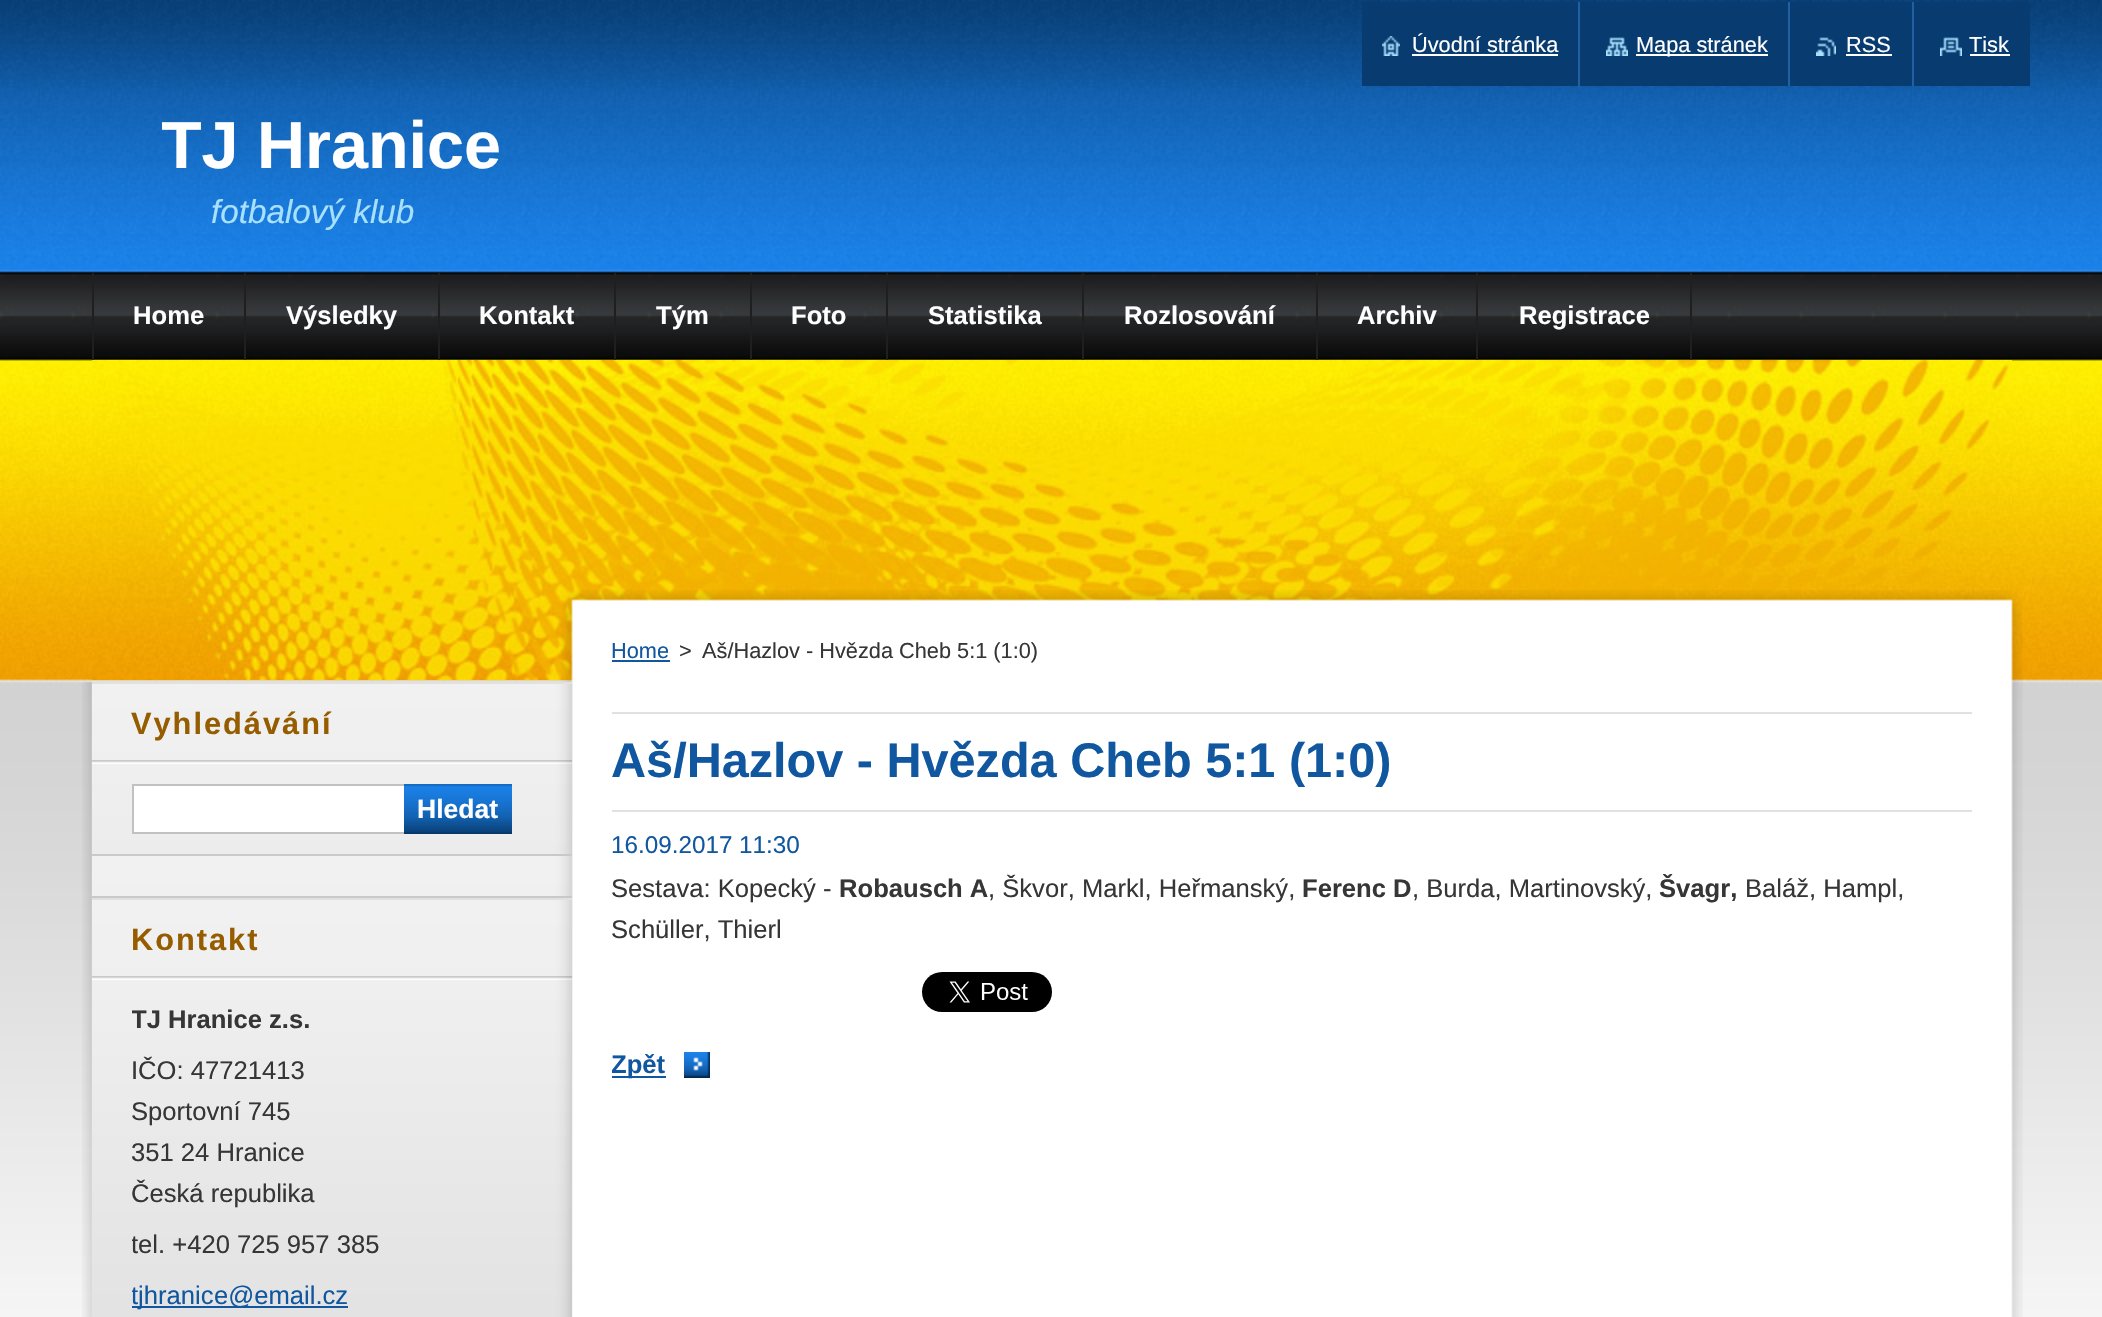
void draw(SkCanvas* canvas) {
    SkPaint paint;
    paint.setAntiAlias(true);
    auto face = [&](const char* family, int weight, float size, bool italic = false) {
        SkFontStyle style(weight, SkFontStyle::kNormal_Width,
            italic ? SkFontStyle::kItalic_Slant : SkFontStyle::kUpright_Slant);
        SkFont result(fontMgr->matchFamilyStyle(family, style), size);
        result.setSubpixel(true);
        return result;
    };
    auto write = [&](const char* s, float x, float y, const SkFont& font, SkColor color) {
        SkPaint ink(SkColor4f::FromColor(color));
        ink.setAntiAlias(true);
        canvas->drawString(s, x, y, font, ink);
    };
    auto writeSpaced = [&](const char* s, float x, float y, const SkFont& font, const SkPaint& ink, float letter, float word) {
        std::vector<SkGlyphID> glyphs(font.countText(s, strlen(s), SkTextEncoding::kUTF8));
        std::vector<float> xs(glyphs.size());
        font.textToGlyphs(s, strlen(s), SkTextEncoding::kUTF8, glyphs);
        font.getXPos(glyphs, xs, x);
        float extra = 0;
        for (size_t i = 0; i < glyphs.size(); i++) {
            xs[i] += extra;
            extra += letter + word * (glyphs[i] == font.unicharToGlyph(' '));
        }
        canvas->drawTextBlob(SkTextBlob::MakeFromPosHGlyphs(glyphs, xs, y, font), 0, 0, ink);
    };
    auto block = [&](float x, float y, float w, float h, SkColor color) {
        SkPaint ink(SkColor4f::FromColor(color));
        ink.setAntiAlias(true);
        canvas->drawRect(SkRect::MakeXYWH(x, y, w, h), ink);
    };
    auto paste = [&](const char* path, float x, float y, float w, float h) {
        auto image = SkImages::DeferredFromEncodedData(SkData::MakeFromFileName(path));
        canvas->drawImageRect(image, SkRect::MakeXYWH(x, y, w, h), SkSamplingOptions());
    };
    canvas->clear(SK_ColorWHITE);
    paste("pic1.png", 0, 0, 2102, 1317);
    block(1362, 2, 668, 84, SkColorSetRGB(8, 60, 113));
    paste("pic2.png", 1382, 36, 18, 20);
    auto kFont1 = face("Liberation Sans", 400, 21.75f);
    write("Úvodní stránka", 1412, 52, kFont1, SK_ColorWHITE);
    block(1578, 2, 2, 84, SkColorSetRGB(33, 97, 163));
    block(1412, 54, 146, 2, SK_ColorWHITE);
    paste("pic3.png", 1606, 37, 22, 19);
    block(1636, 54, 132, 2, SK_ColorWHITE);
    write("Mapa stránek", 1636, 52, kFont1, SK_ColorWHITE);
    block(1788, 2, 2, 84, SkColorSetRGB(33, 97, 163));
    paste("pic4.png", 1816, 37, 20, 19);
    write("RSS", 1846, 52, kFont1, SK_ColorWHITE);
    block(1912, 2, 2, 84, SkColorSetRGB(33, 97, 163));
    block(1846, 54, 46, 2, SK_ColorWHITE);
    paste("pic5.png", 1940, 37, 22, 19);
    write("Tisk", 1969, 52, kFont1, SK_ColorWHITE);
    block(1970, 54, 40, 2, SK_ColorWHITE);
    canvas->save();
    canvas->clipRect(SkRect::MakeXYWH(162, 100, 1200, 94));
    auto kFont2 = face("Liberation Sans", 700, 66.5f);
    write("TJ Hranice", 161, 168, kFont2, SK_ColorWHITE);
    canvas->restore();
    auto kFont3 = face("Liberation Sans", 400, 33.25f, true);
    write("fotbalový klub", 211, 223, kFont3, SkColorSetRGB(167, 225, 255));
    paste("pic6.png", 92, 360, 1920, 320);
    block(244, 272, 2, 88, SkColorSetRGB(31, 31, 31));
    block(92, 272, 2, 88, SkColorSetRGB(31, 31, 31));
    auto kFont4 = face("Liberation Sans", 700, 25.6f);
    write("Home", 133, 324, kFont4, SK_ColorWHITE);
    block(438, 272, 2, 88, SkColorSetRGB(31, 31, 31));
    write("Výsledky", 286, 324, kFont4, SK_ColorWHITE);
    block(614, 272, 2, 88, SkColorSetRGB(31, 31, 31));
    write("Kontakt", 479, 324, kFont4, SK_ColorWHITE);
    block(750, 272, 2, 88, SkColorSetRGB(31, 31, 31));
    write("Tým", 656, 324, kFont4, SK_ColorWHITE);
    block(886, 272, 2, 88, SkColorSetRGB(31, 31, 31));
    write("Foto", 791, 324, kFont4, SK_ColorWHITE);
    block(1082, 272, 2, 88, SkColorSetRGB(31, 31, 31));
    write("Statistika", 928, 324, kFont4, SK_ColorWHITE);
    block(1316, 272, 2, 88, SkColorSetRGB(31, 31, 31));
    write("Rozlosování", 1124, 324, kFont4, SK_ColorWHITE);
    block(1476, 272, 2, 88, SkColorSetRGB(31, 31, 31));
    write("Archiv", 1357, 324, kFont4, SK_ColorWHITE);
    block(1690, 272, 2, 88, SkColorSetRGB(31, 31, 31));
    write("Registrace", 1519, 324, kFont4, SK_ColorWHITE);
    paste("pic7.png", 562, 590, 1460, 32);
    paste("pic8.png", 561, 622, 1462, 695);
    paste("pic9.png", 82, 682, 10, 174);
    paste("pic10.png", 92, 684, 480, 170);
    block(92, 854, 480, 2, SkColorSetRGB(201, 201, 201));
    paste("pic11.png", 92, 760, 480, 4);
    block(92, 682, 480, 2, SkColorSetRGB(225, 225, 225));
    auto kFont5 = face("Liberation Sans", 700, 30.75f);
    paint.setColor(SkColorSetRGB(149, 93, 0));
    writeSpaced("Vyhledávání", 131, 734, kFont5, paint, 2, 0);
    paint.setColor(SK_ColorWHITE);
    canvas->drawRect(SkRect::MakeXYWH(133, 785, 272, 48), paint);
    paint.setStyle(SkPaint::kStroke_Style);
    paint.setStrokeWidth(2);
    paint.setColor(SkColorSetRGB(193, 193, 193));
    canvas->drawRect(SkRect::MakeXYWH(133, 785, 272, 48), paint);
    block(404, 833, 108, 1, SkColorSetRGB(6, 56, 106));
    paste("pic12.png", 404, 784, 108, 49);
    auto kFont6 = face("Liberation Sans", 700, 26.5f);
    write("Hledat", 417, 818, kFont6, SK_ColorWHITE);
    paste("pic13.png", 82, 856, 10, 42);
    paste("pic14.png", 92, 856, 480, 40);
    block(92, 896, 480, 2, SkColorSetRGB(201, 201, 201));
    paste("pic15.png", 82, 898, 10, 419);
    paste("pic16.png", 92, 900, 480, 417);
    paste("pic11.png", 92, 976, 480, 4);
    block(92, 898, 480, 2, SkColorSetRGB(225, 225, 225));
    paint.setStyle(SkPaint::kFill_Style);
    paint.setColor(SkColorSetRGB(149, 93, 0));
    writeSpaced("Kontakt", 131, 950, kFont5, paint, 2, 0);
    canvas->save();
    canvas->clipRect(SkRect::MakeXYWH(132, 980, 400, 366));
    write("TJ Hranice z.s.", 131, 1028, kFont4, SkColorSetRGB(54, 54, 54));
    canvas->restore();
    auto kFont7 = face("Liberation Sans", 400, 25.6f);
    write("IČO: 47721413", 131, 1079, kFont7, SkColorSetRGB(54, 54, 54));
    write("Sportovní 745", 131, 1120, kFont7, SkColorSetRGB(54, 54, 54));
    write("351 24 Hranice", 131, 1161, kFont7, SkColorSetRGB(54, 54, 54));
    write("Česká republika", 131, 1202, kFont7, SkColorSetRGB(54, 54, 54));
    canvas->save();
    canvas->clipRect(SkRect::MakeXYWH(132, 980, 400, 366));
    write("tel. +420 725 957 385", 131, 1253, kFont7, SkColorSetRGB(54, 54, 54));
    canvas->restore();
    block(132, 1306, 216, 2, SkColorSetRGB(16, 87, 160));
    canvas->save();
    canvas->clipRect(SkRect::MakeXYWH(132, 980, 400, 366));
    write("tjhranic", 131, 1304, kFont7, SkColorSetRGB(16, 87, 160));
    canvas->restore();
    write("e@email.cz", 214, 1304, kFont7, SkColorSetRGB(16, 87, 160));
    write("Home", 611, 658, kFont1, SkColorSetRGB(16, 87, 160));
    block(612, 660, 58, 2, SkColorSetRGB(16, 87, 160));
    write(">", 679, 658, kFont1, SkColorSetRGB(54, 54, 54));
    write("Aš/Hazlov - Hvězda Cheb 5:1 (1:0)", 702, 658, kFont1, SkColorSetRGB(54, 54, 54));
    block(612, 712, 1360, 2, SkColorSetRGB(225, 225, 225));
    block(612, 810, 1360, 2, SkColorSetRGB(225, 225, 225));
    auto kFont8 = face("Liberation Sans", 700, 48.6f);
    write("Aš/Hazlov - Hvězda Cheb 5:1 (1:0)", 611, 777, kFont8, SkColorSetRGB(16, 87, 160));
    auto kFont9 = face("Liberation Sans", 400, 24.25f);
    write("16.09.2017 11:30", 611, 853, kFont9, SkColorSetRGB(16, 87, 160));
    write("Sestava: Kopecký -", 611, 897, kFont7, SkColorSetRGB(54, 54, 54));
    write("Robausch A", 839, 897, kFont4, SkColorSetRGB(54, 54, 54));
    write(", Škvor, Markl, Heřmanský,", 988, 897, kFont7, SkColorSetRGB(54, 54, 54));
    write("Ferenc D", 1302, 897, kFont4, SkColorSetRGB(54, 54, 54));
    write(", Burda, Martinovský,", 1412, 897, kFont7, SkColorSetRGB(54, 54, 54));
    write("Švagr,", 1659, 897, kFont4, SkColorSetRGB(54, 54, 54));
    write("Baláž, Hampl,", 1745, 897, kFont7, SkColorSetRGB(54, 54, 54));
    write("Schüller, Thierl", 611, 938, kFont7, SkColorSetRGB(54, 54, 54));
    paste("pic17.png", 922, 972, 130, 40);
    paste("pic18.png", 684, 1052, 26, 26);
    block(612, 1076, 54, 2, SkColorSetRGB(16, 87, 160));
    canvas->save();
    canvas->clipRect(SkRect::MakeXYWH(612, 832, 1360, 248));
    write("Zpět", 611, 1073, kFont4, SkColorSetRGB(16, 87, 160));
    canvas->restore();
}
